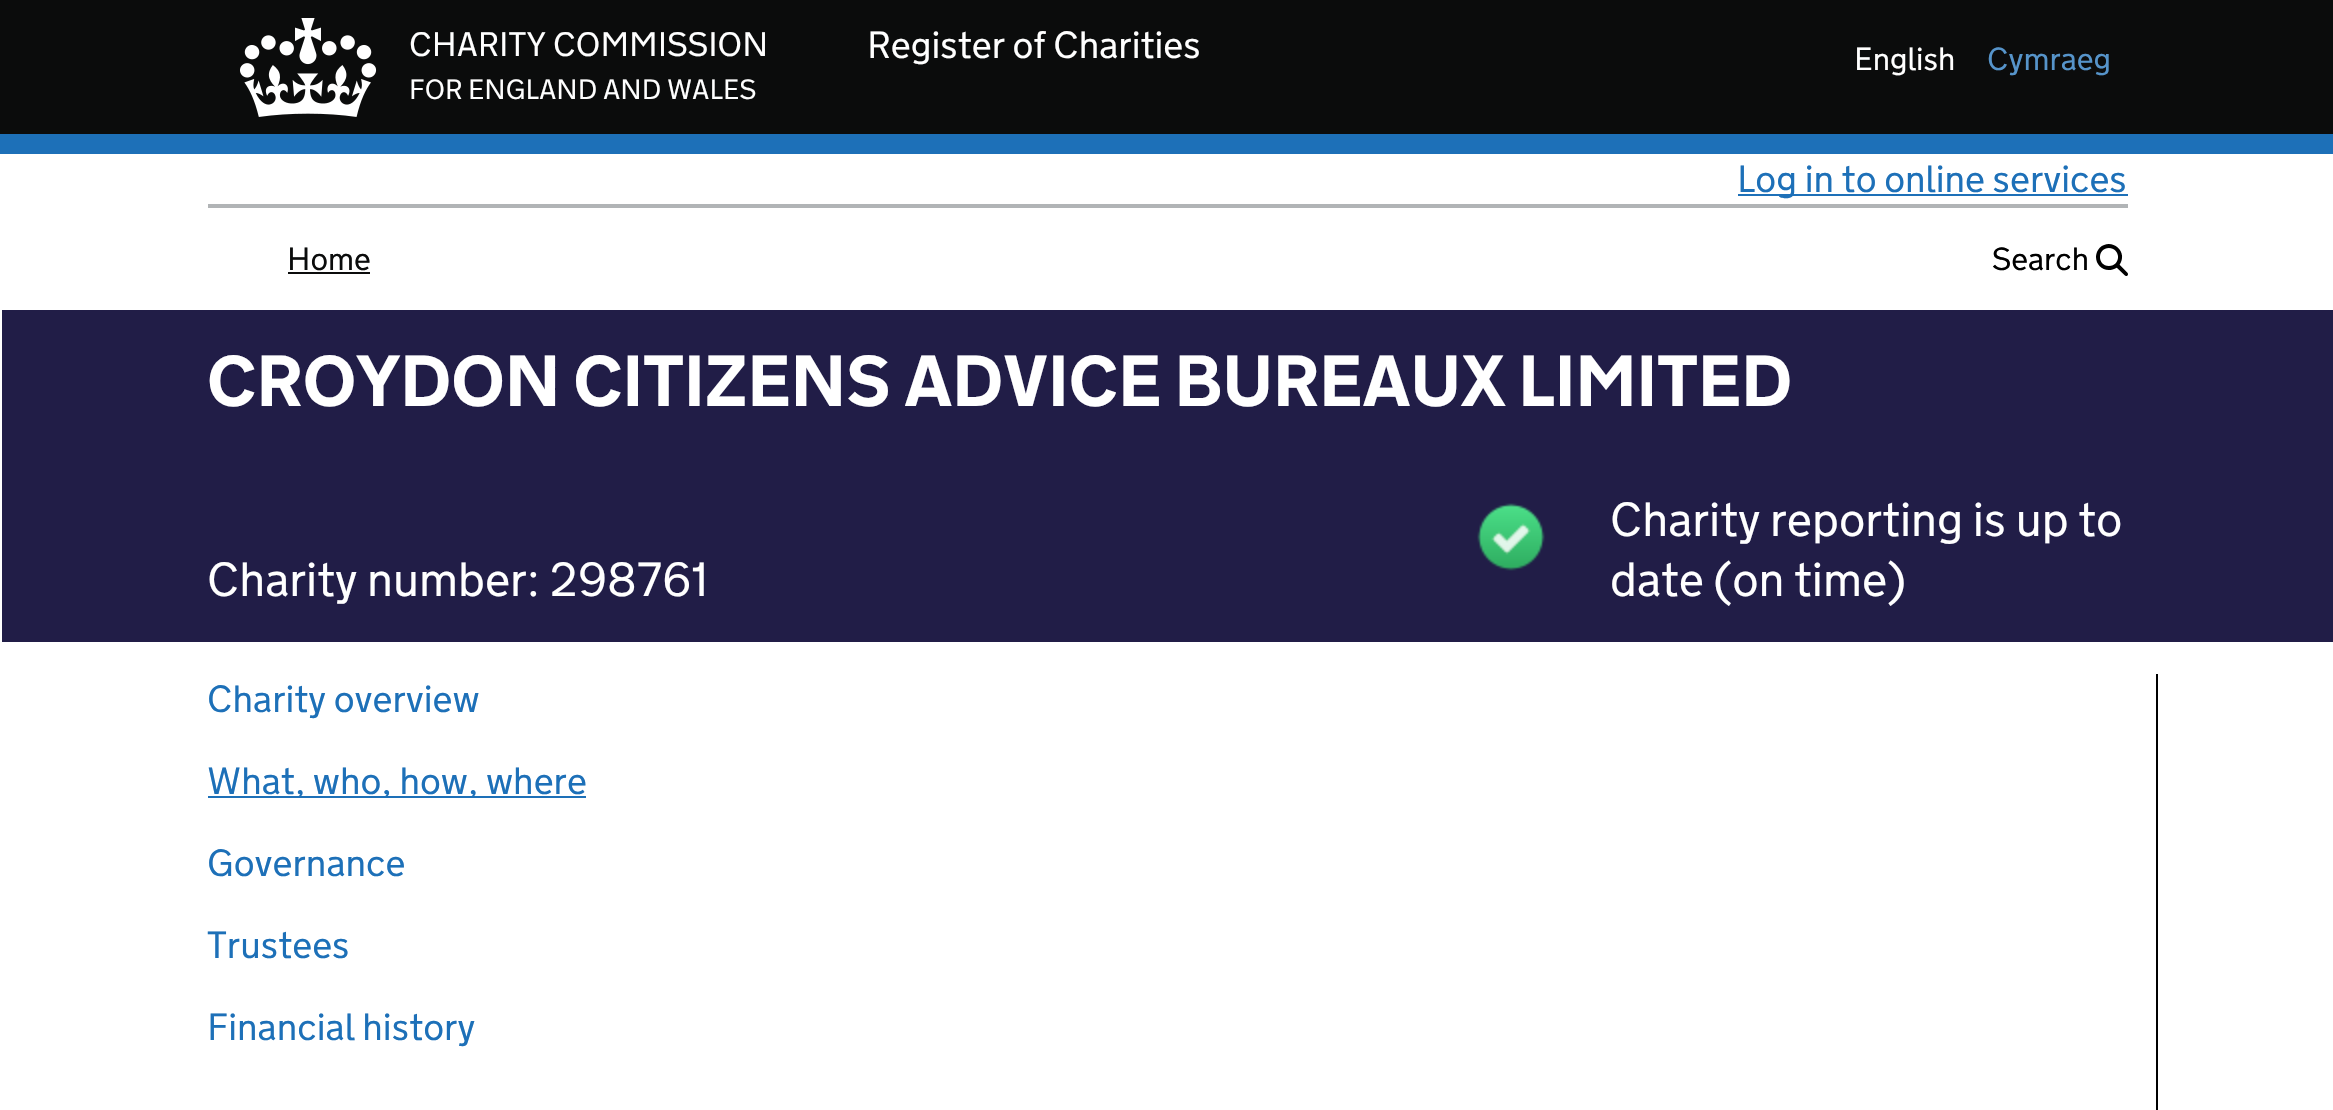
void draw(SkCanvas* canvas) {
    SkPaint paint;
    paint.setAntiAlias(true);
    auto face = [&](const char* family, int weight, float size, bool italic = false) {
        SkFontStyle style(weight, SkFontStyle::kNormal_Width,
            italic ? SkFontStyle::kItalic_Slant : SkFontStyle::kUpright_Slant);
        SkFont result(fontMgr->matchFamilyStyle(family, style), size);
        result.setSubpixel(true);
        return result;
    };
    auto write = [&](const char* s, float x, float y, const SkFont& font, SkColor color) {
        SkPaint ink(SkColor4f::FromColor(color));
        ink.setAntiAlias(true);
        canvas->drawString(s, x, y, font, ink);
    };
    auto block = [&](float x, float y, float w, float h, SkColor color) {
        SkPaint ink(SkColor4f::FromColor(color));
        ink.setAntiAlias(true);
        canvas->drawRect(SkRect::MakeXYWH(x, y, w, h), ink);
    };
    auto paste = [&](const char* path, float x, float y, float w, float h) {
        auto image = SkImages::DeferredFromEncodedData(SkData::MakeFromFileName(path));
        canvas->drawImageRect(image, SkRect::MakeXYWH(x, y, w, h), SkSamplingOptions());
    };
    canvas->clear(SK_ColorWHITE);
    block(0, 0, 2333, 134, SkColorSetRGB(11, 12, 12));
    block(0, 134, 2333, 20, SkColorSetRGB(29, 112, 184));
    paste("pic1.png", 240, 18, 137, 99);
    auto kFont1 = face("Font", 300, 34);
    write("CHARITY COMMISSION", 409, 56, kFont1, SK_ColorWHITE);
    auto kFont2 = face("Font", 300, 28);
    write("FOR ENGLAND AND WALES", 409, 99, kFont2, SK_ColorWHITE);
    auto kFont3 = face("Font", 300, 38);
    write("Register of Charities", 867, 58, kFont3, SK_ColorWHITE);
    auto kFont4 = face("Font", 300, 32);
    write("English", 1854, 70, kFont4, SK_ColorWHITE);
    write("Cymraeg", 1987, 70, kFont4, SkColorSetRGB(86, 148, 202));
    block(208, 204, 1920, 4, SkColorSetRGB(177, 180, 182));
    block(1738, 194, 390, 2, SkColorSetRGB(29, 112, 184));
    write("Log in to online services", 1737, 192, kFont3, SkColorSetRGB(29, 112, 184));
    write("Home", 287, 270, kFont4, SkColorSetRGB(11, 12, 12));
    block(288, 272, 82, 2, SkColorSetRGB(11, 12, 12));
    write("Search", 1992, 270, kFont4, SK_ColorBLACK);
    paste("pic2.png", 2096, 244, 32, 32);
    block(2, 310, 2331, 332, SkColorSetRGB(33, 29, 71));
    auto kFont5 = face("Font", 700, 72);
    write("CROYDON CITIZENS ADVICE BUREAUX LIMITED", 207, 406, kFont5, SK_ColorWHITE);
    auto kFont6 = face("Font", 300, 48);
    write("Charity number: 298761", 207, 596, kFont6, SK_ColorWHITE);
    paste("pic3.png", 1477, 503, 68, 68);
    write("Charity reporting is up to", 1610, 536, kFont6, SK_ColorWHITE);
    write("date (on time)", 1610, 596, kFont6, SK_ColorWHITE);
    block(2156, 674, 2, 436, SK_ColorBLACK);
    write("Charity overview", 207, 712, kFont3, SkColorSetRGB(29, 112, 184));
    block(208, 796, 378, 2, SkColorSetRGB(29, 112, 184));
    write("What, who, how, where", 207, 794, kFont3, SkColorSetRGB(29, 112, 184));
    write("Governance", 207, 876, kFont3, SkColorSetRGB(29, 112, 184));
    write("Trustees", 207, 958, kFont3, SkColorSetRGB(29, 112, 184));
    write("Financial history", 207, 1040, kFont3, SkColorSetRGB(29, 112, 184));
}
